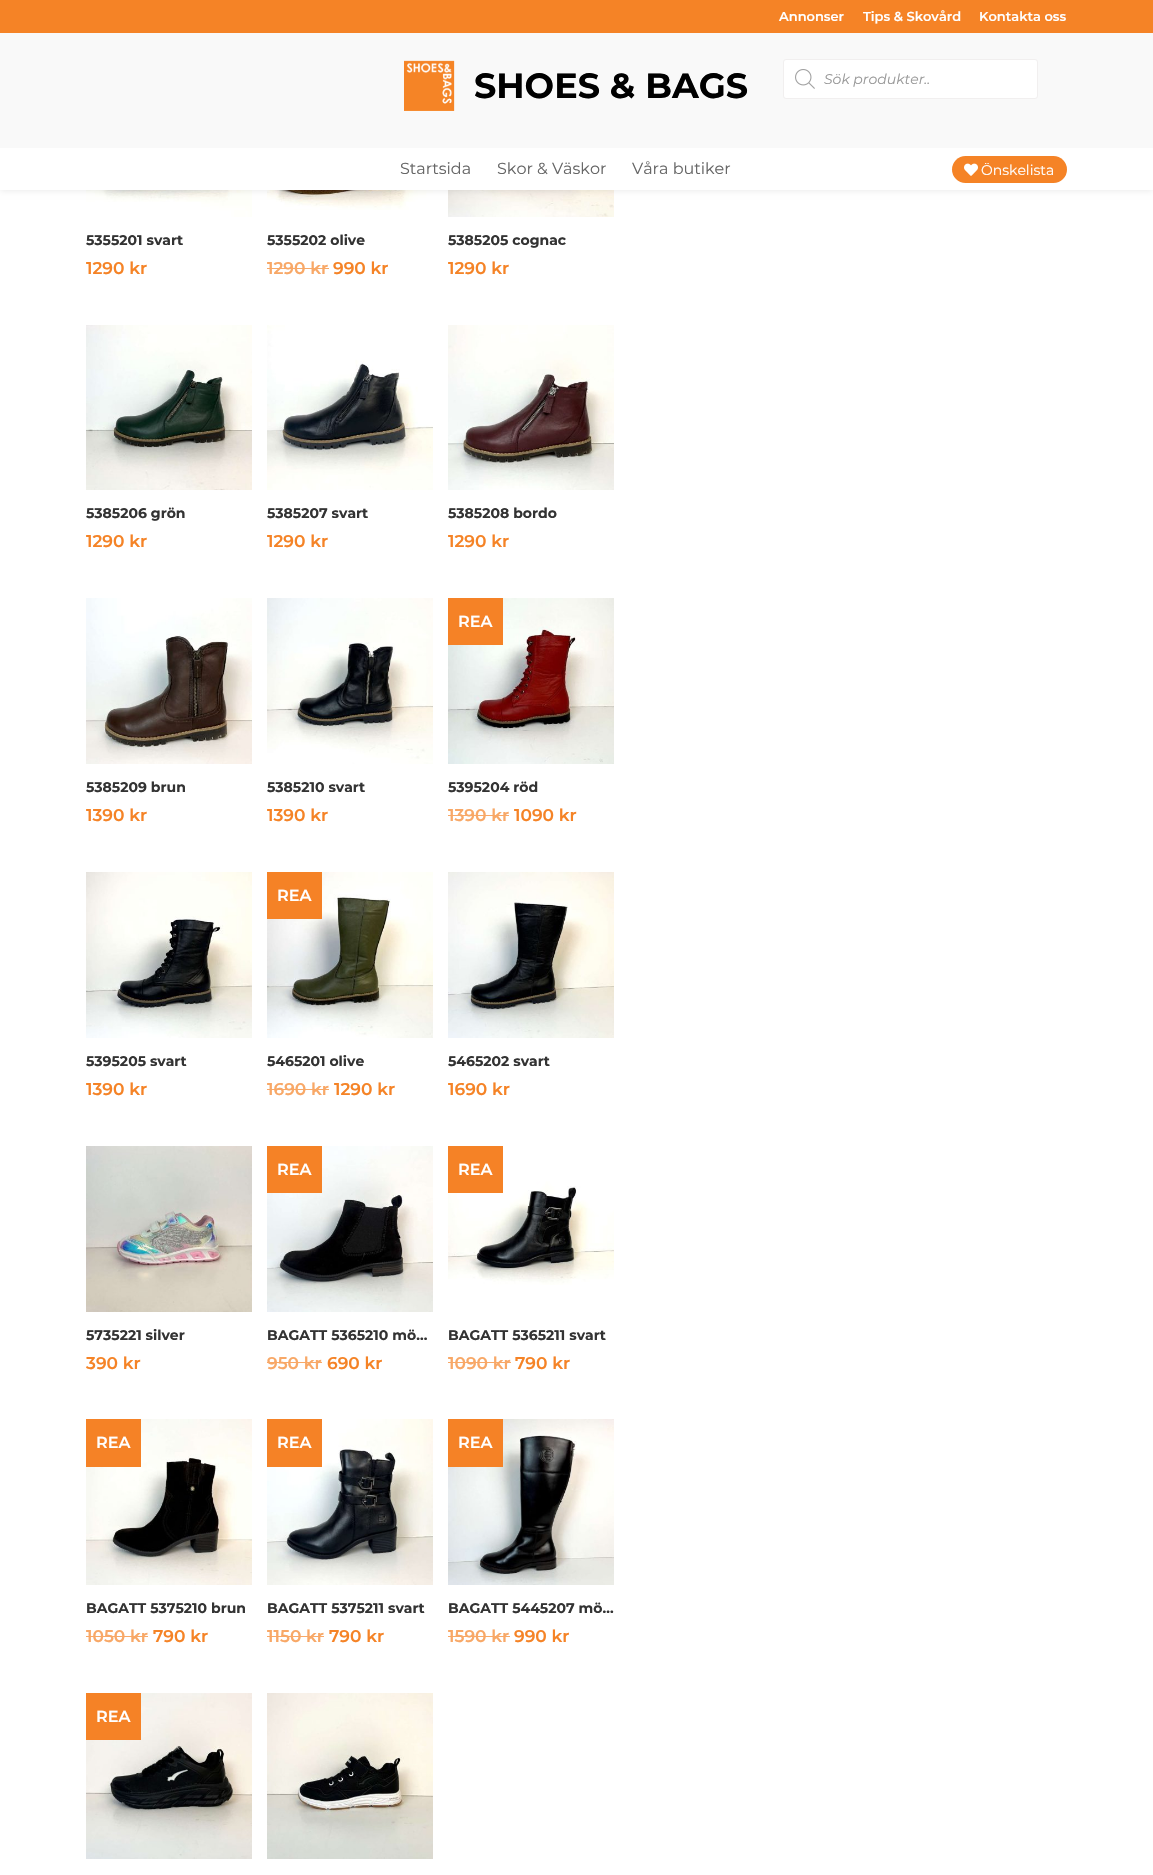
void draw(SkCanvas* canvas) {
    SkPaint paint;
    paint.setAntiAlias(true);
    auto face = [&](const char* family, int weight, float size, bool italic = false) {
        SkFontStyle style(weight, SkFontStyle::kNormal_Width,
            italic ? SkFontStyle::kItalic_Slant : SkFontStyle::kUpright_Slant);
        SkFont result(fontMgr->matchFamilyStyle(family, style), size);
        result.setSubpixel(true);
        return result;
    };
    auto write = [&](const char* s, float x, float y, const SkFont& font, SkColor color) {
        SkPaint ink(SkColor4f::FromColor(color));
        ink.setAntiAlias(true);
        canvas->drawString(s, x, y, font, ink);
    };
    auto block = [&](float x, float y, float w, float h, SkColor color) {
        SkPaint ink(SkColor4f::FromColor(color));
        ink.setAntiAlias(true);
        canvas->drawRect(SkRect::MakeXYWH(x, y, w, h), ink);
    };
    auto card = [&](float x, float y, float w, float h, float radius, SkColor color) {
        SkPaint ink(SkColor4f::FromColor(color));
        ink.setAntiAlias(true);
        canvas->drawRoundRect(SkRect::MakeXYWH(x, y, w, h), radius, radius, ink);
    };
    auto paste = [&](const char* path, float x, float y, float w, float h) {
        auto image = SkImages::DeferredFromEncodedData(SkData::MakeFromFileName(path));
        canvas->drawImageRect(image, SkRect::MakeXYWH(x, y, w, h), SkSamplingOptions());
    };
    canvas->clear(SK_ColorWHITE);
    paste("pic4.png", 86, 190, 166, 27);
    paste("pic5.png", 267, 190, 166, 20);
    paste("pic6.png", 448, 190, 166, 27);
    paint.setColor(SkColorSetARGB(26, 0, 0, 0));
    paint.setMaskFilter(SkMaskFilter::MakeBlur(kNormal_SkBlurStyle, 3.5f));
    canvas->drawRect(SkRect::MakeXYWH(0, 33, 1153, 157), paint);
    paint.setMaskFilter(nullptr);
    block(0, 0, 1153, 33, SkColorSetRGB(245, 131, 38));
    auto kFont1 = face("Montserrat", 600, 13);
    write("Annonser", 779, 21, kFont1, SK_ColorWHITE);
    write("Tips & Skovård", 863, 21, kFont1, SK_ColorWHITE);
    write("Kontakta oss", 979, 21, kFont1, SK_ColorWHITE);
    block(0, 148, 1153, 42, SK_ColorWHITE);
    block(0, 33, 1153, 115, SkColorSetRGB(249, 249, 249));
    paste("pic1.png", 404, 60, 51, 51);
    auto kFont2 = face("Montserrat", 700, 35);
    write("SHOES & BAGS", 474, 98, kFont2, SK_ColorBLACK);
    paint.setColor(SK_ColorWHITE);
    canvas->drawRoundRect(SkRect::MakeXYWH(783.5f, 59.5f, 254, 39), 2.5f, 2.5f, paint);
    paint.setStyle(SkPaint::kStroke_Style);
    paint.setStrokeWidth(1);
    paint.setColor(SkColorSetRGB(241, 239, 239));
    canvas->drawRoundRect(SkRect::MakeXYWH(783.5f, 59.5f, 254, 39), 2.5f, 2.5f, paint);
    paste("pic2.png", 795, 69, 20, 20);
    auto kFont3 = face("Montserrat", 400, 14, true);
    write("Sök produkter..", 824, 84, kFont3, SkColorSetRGB(153, 153, 153));
    auto kFont4 = face("Montserrat", 400, 16);
    write("Startsida", 400, 174, kFont4, SkColorSetRGB(102, 102, 102));
    write("Skor & Väskor", 497, 174, kFont4, SkColorSetRGB(102, 102, 102));
    write("Våra butiker", 632, 174, kFont4, SkColorSetRGB(102, 102, 102));
    card(952, 156, 115, 27, 13.5f, SkColorSetRGB(245, 131, 38));
    paste("pic3.png", 964, 163, 14, 13);
    auto kFont5 = face("Montserrat", 400, 14);
    write("Önskelista", 981, 175, kFont5, SK_ColorWHITE);
    auto kFont6 = face("Montserrat", 700, 14);
    write("5355201 svart", 86, 245, kFont6, SkColorSetRGB(51, 51, 51));
    auto kFont7 = face("Montserrat", 600, 17);
    write("1290 kr", 86, 274, kFont7, SkColorSetRGB(245, 131, 38));
    write("5355202 olive", 267, 245, kFont6, SkColorSetRGB(51, 51, 51));
    write("1290 kr", 267, 274, kFont7, SkColorSetRGB(248, 168, 103));
    block(267, 268, 62, 1, SkColorSetRGB(248, 168, 103));
    write("990 kr", 333, 274, kFont7, SkColorSetRGB(245, 131, 38));
    write("5385205 cognac", 448, 245, kFont6, SkColorSetRGB(51, 51, 51));
    write("1290 kr", 448, 274, kFont7, SkColorSetRGB(245, 131, 38));
    paste("pic7.png", 86, 325, 166, 165);
    write("5385206 grön", 86, 518, kFont6, SkColorSetRGB(51, 51, 51));
    write("1290 kr", 86, 547, kFont7, SkColorSetRGB(245, 131, 38));
    paste("pic8.png", 267, 325, 166, 165);
    write("5385207 svart", 267, 518, kFont6, SkColorSetRGB(51, 51, 51));
    write("1290 kr", 267, 547, kFont7, SkColorSetRGB(245, 131, 38));
    paste("pic9.png", 448, 325, 166, 165);
    write("5385208 bordo", 448, 518, kFont6, SkColorSetRGB(51, 51, 51));
    write("1290 kr", 448, 547, kFont7, SkColorSetRGB(245, 131, 38));
    paste("pic10.png", 86, 598, 166, 166);
    write("5385209 brun", 86, 792, kFont6, SkColorSetRGB(51, 51, 51));
    write("1390 kr", 86, 821, kFont7, SkColorSetRGB(245, 131, 38));
    paste("pic11.png", 267, 598, 166, 166);
    write("5385210 svart", 267, 792, kFont6, SkColorSetRGB(51, 51, 51));
    write("1390 kr", 267, 821, kFont7, SkColorSetRGB(245, 131, 38));
    paste("pic12.png", 448, 598, 166, 166);
    block(448, 598, 55, 47, SkColorSetRGB(245, 130, 38));
    auto kFont8 = face("Montserrat", 600, 16);
    write("REA", 458, 627, kFont8, SK_ColorWHITE);
    write("5395204 röd", 448, 792, kFont6, SkColorSetRGB(51, 51, 51));
    write("1390 kr", 448, 821, kFont7, SkColorSetRGB(248, 168, 103));
    block(448, 815, 61, 1, SkColorSetRGB(248, 168, 103));
    write("1090 kr", 514, 821, kFont7, SkColorSetRGB(245, 131, 38));
    paste("pic13.png", 86, 872, 166, 166);
    write("5395205 svart", 86, 1066, kFont6, SkColorSetRGB(51, 51, 51));
    write("1390 kr", 86, 1095, kFont7, SkColorSetRGB(245, 131, 38));
    paste("pic14.png", 267, 872, 166, 166);
    block(267, 872, 55, 47, SkColorSetRGB(245, 130, 38));
    write("REA", 277, 901, kFont8, SK_ColorWHITE);
    write("5465201 olive", 267, 1066, kFont6, SkColorSetRGB(51, 51, 51));
    write("1690 kr", 267, 1095, kFont7, SkColorSetRGB(248, 168, 103));
    block(267, 1089, 62, 1, SkColorSetRGB(248, 168, 103));
    write("1290 kr", 334, 1095, kFont7, SkColorSetRGB(245, 131, 38));
    paste("pic15.png", 448, 872, 166, 166);
    write("5465202 svart", 448, 1066, kFont6, SkColorSetRGB(51, 51, 51));
    write("1690 kr", 448, 1095, kFont7, SkColorSetRGB(245, 131, 38));
    paste("pic16.png", 86, 1146, 166, 166);
    write("5735221 silver", 86, 1340, kFont6, SkColorSetRGB(51, 51, 51));
    write("390 kr", 86, 1369, kFont7, SkColorSetRGB(245, 131, 38));
    paste("pic17.png", 267, 1146, 166, 166);
    block(267, 1146, 55, 47, SkColorSetRGB(245, 130, 38));
    write("REA", 277, 1175, kFont8, SK_ColorWHITE);
    write("BAGATT 5365210 mö…", 267, 1340, kFont6, SkColorSetRGB(51, 51, 51));
    write("950 kr", 267, 1369, kFont7, SkColorSetRGB(248, 168, 103));
    block(267, 1362, 55, 1, SkColorSetRGB(248, 168, 103));
    write("690 kr", 327, 1369, kFont7, SkColorSetRGB(245, 131, 38));
    paste("pic18.png", 448, 1146, 166, 139);
    block(448, 1146, 55, 47, SkColorSetRGB(245, 130, 38));
    write("REA", 458, 1175, kFont8, SK_ColorWHITE);
    write("BAGATT 5365211 svart", 448, 1340, kFont6, SkColorSetRGB(51, 51, 51));
    write("1090 kr", 448, 1369, kFont7, SkColorSetRGB(248, 168, 103));
    block(448, 1362, 63, 1, SkColorSetRGB(248, 168, 103));
    write("790 kr", 515, 1369, kFont7, SkColorSetRGB(245, 131, 38));
    paste("pic19.png", 86, 1419, 166, 166);
    block(86, 1419, 55, 48, SkColorSetRGB(245, 130, 38));
    write("REA", 96, 1448, kFont8, SK_ColorWHITE);
    write("BAGATT 5375210 brun", 86, 1613, kFont6, SkColorSetRGB(51, 51, 51));
    write("1050 kr", 86, 1642, kFont7, SkColorSetRGB(248, 168, 103));
    block(86, 1636, 62, 1, SkColorSetRGB(248, 168, 103));
    write("790 kr", 153, 1642, kFont7, SkColorSetRGB(245, 131, 38));
    paste("pic20.png", 267, 1419, 166, 166);
    block(267, 1419, 55, 48, SkColorSetRGB(245, 130, 38));
    write("REA", 277, 1448, kFont8, SK_ColorWHITE);
    write("BAGATT 5375211 svart", 267, 1613, kFont6, SkColorSetRGB(51, 51, 51));
    write("1150 kr", 267, 1642, kFont7, SkColorSetRGB(248, 168, 103));
    block(267, 1636, 57, 1, SkColorSetRGB(248, 168, 103));
    write("790 kr", 329, 1642, kFont7, SkColorSetRGB(245, 131, 38));
    paste("pic21.png", 448, 1419, 166, 166);
    block(448, 1419, 55, 48, SkColorSetRGB(245, 130, 38));
    write("REA", 458, 1448, kFont8, SK_ColorWHITE);
    write("BAGATT 5445207 mö…", 448, 1613, kFont6, SkColorSetRGB(51, 51, 51));
    write("1590 kr", 448, 1642, kFont7, SkColorSetRGB(248, 168, 103));
    block(448, 1636, 62, 1, SkColorSetRGB(248, 168, 103));
    write("990 kr", 514, 1642, kFont7, SkColorSetRGB(245, 131, 38));
    paste("pic22.png", 86, 1693, 166, 166);
    block(86, 1693, 55, 47, SkColorSetRGB(245, 130, 38));
    write("REA", 96, 1722, kFont8, SK_ColorWHITE);
    paste("pic23.png", 267, 1693, 166, 166);
}
